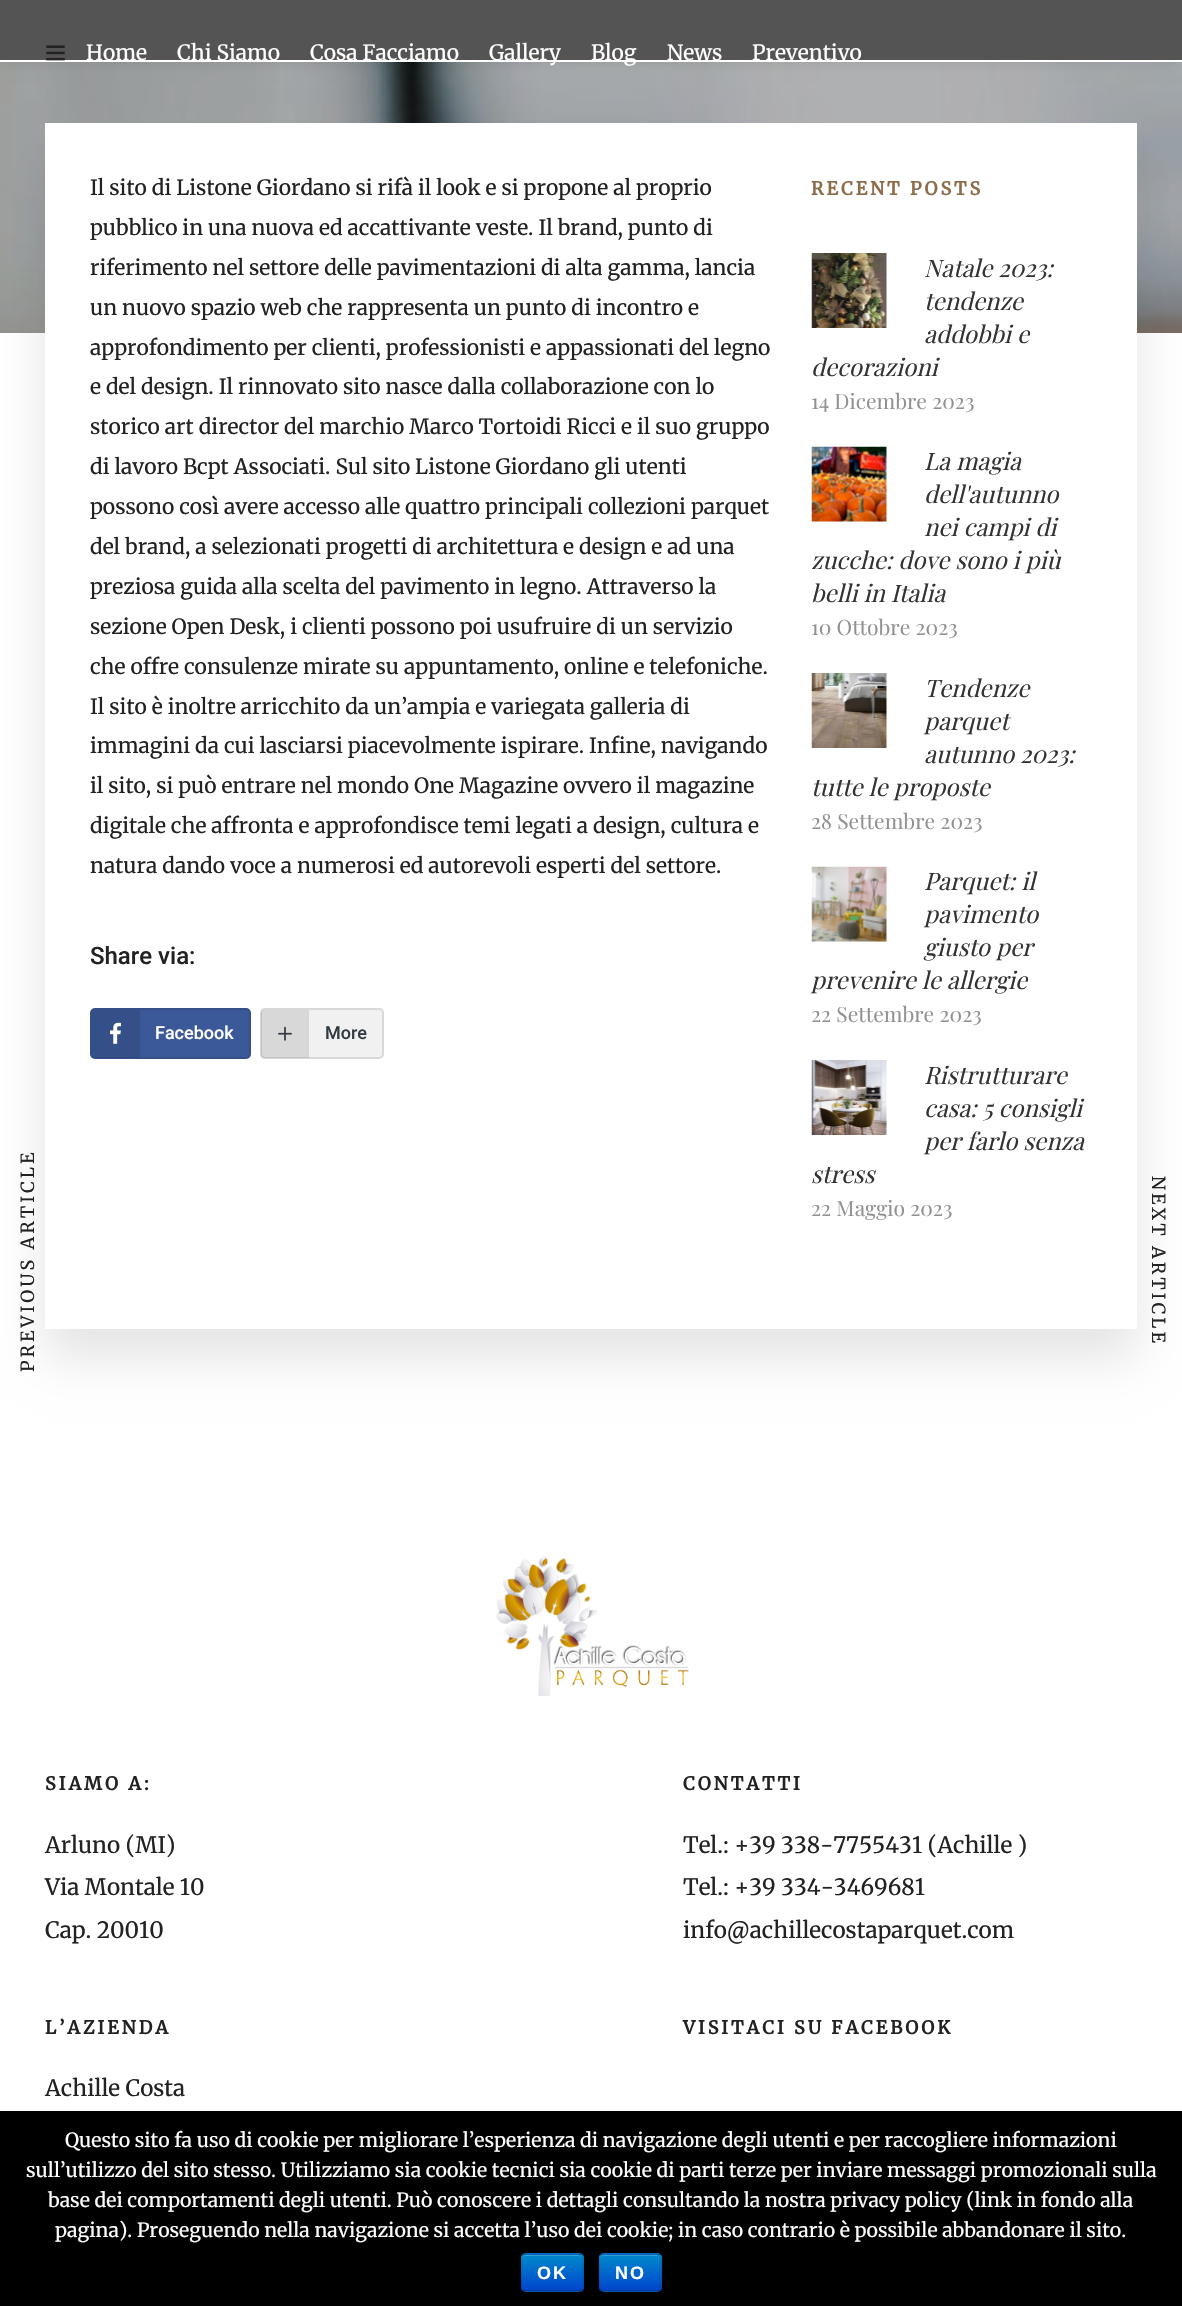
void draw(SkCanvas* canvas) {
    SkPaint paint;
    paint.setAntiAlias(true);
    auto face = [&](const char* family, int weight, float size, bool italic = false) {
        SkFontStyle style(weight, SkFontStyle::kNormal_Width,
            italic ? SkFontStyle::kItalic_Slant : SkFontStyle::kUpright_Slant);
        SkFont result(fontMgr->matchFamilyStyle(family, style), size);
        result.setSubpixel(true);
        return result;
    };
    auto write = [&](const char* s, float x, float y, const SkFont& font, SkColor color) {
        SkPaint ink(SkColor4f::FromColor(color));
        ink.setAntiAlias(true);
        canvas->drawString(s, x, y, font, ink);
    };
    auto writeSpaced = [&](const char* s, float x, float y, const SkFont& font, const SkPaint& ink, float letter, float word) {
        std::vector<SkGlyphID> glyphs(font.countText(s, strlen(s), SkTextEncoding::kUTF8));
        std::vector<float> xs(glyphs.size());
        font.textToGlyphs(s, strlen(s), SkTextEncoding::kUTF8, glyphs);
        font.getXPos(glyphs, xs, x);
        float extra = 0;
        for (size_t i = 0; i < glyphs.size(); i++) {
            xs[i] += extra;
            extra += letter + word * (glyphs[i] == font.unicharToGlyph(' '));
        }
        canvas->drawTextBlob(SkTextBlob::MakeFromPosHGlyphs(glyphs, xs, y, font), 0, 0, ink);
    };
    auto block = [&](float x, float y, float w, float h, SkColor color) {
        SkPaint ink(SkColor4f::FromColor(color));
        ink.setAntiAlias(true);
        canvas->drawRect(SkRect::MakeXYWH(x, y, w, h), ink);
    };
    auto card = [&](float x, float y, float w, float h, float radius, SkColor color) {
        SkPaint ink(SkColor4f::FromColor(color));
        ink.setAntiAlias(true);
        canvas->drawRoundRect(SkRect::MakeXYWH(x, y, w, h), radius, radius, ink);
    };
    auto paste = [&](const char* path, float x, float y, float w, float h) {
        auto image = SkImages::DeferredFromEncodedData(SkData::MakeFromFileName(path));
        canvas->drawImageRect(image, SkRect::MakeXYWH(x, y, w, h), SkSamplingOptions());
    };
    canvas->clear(SK_ColorWHITE);
    paste("pic2.png", 0, 62, 1182, 271);
    paint.setColor(SkColorSetARGB(26, 1, 1, 1));
    paint.setMaskFilter(SkMaskFilter::MakeBlur(kNormal_SkBlurStyle, 7.5f));
    canvas->drawRect(SkRect::MakeXYWH(0, 0, 1182, 62), paint);
    paint.setMaskFilter(nullptr);
    block(0, 0, 1182, 60, SkColorSetRGB(84, 84, 84));
    block(0, 60, 1182, 2, SK_ColorWHITE);
    paste("pic1.png", 46, 45, 19, 16);
    auto kFont1 = face("Merriweather", 300, 21);
    write("Home", 86, 60, kFont1, SK_ColorWHITE);
    write("Chi Siamo", 177, 60, kFont1, SK_ColorWHITE);
    write("Cosa Facciamo", 310, 60, kFont1, SK_ColorWHITE);
    write("Gallery", 489, 60, kFont1, SK_ColorWHITE);
    write("Blog", 591, 60, kFont1, SK_ColorWHITE);
    write("News", 667, 60, kFont1, SK_ColorWHITE);
    write("Preventivo", 752, 60, kFont1, SK_ColorWHITE);
    paint.setMaskFilter(SkMaskFilter::MakeBlur(kNormal_SkBlurStyle, 22.5f));
    canvas->drawRect(SkRect::MakeXYWH(45, 153, 1092, 1206), paint);
    paint.setMaskFilter(nullptr);
    block(45, 123, 1092, 1206, SK_ColorWHITE);
    write("Il sito di Listone Giordano si rifà il look e si propone al proprio", 90, 195, kFont1, SkColorSetRGB(34, 34, 34));
    write("pubblico in una nuova ed accattivante veste. Il brand, punto di", 90, 235, kFont1, SkColorSetRGB(34, 34, 34));
    write("riferimento nel settore delle pavimentazioni di alta gamma, lancia", 90, 275, kFont1, SkColorSetRGB(34, 34, 34));
    write("un nuovo spazio web che rappresenta un punto di incontro e", 90, 315, kFont1, SkColorSetRGB(34, 34, 34));
    write("approfondimento per clienti, professionisti e appassionati del legno", 90, 355, kFont1, SkColorSetRGB(34, 34, 34));
    write("e del design. Il rinnovato sito nasce dalla collaborazione con lo", 90, 394, kFont1, SkColorSetRGB(34, 34, 34));
    write("storico art director del marchio Marco Tortoidi Ricci e il suo gruppo", 90, 434, kFont1, SkColorSetRGB(34, 34, 34));
    write("di lavoro Bcpt Associati. Sul sito Listone Giordano gli utenti", 90, 474, kFont1, SkColorSetRGB(34, 34, 34));
    write("possono così avere accesso alle quattro principali collezioni parquet", 90, 514, kFont1, SkColorSetRGB(34, 34, 34));
    write("del brand, a selezionati progetti di architettura e design e ad una", 90, 554, kFont1, SkColorSetRGB(34, 34, 34));
    write("preziosa guida alla scelta del pavimento in legno. Attraverso la", 90, 594, kFont1, SkColorSetRGB(34, 34, 34));
    write("sezione Open Desk, i clienti possono poi usufruire di un servizio", 90, 634, kFont1, SkColorSetRGB(34, 34, 34));
    write("che offre consulenze mirate su appuntamento, online e telefoniche.", 90, 674, kFont1, SkColorSetRGB(34, 34, 34));
    write("Il sito è inoltre arricchito da un’ampia e variegata galleria di", 90, 714, kFont1, SkColorSetRGB(34, 34, 34));
    write("immagini da cui lasciarsi piacevolmente ispirare. Infine, navigando", 90, 753, kFont1, SkColorSetRGB(34, 34, 34));
    write("il sito, si può entrare nel mondo One Magazine ovvero il magazine", 90, 793, kFont1, SkColorSetRGB(34, 34, 34));
    write("digitale che affronta e approfondisce temi legati a design, cultura e", 90, 833, kFont1, SkColorSetRGB(34, 34, 34));
    write("natura dando voce a numerosi ed autorevoli esperti del settore.", 90, 873, kFont1, SkColorSetRGB(34, 34, 34));
    auto kFont2 = face("Roboto", 500, 24);
    write("Share via:", 90, 964, kFont2, SkColorSetRGB(34, 34, 34));
    card(90, 1008, 161, 51, 5, SkColorSetRGB(59, 89, 152));
    paint.setStyle(SkPaint::kStroke_Style);
    paint.setStrokeWidth(2);
    paint.setColor(SkColorSetARGB(26, 0, 0, 0));
    canvas->drawRoundRect(SkRect::MakeXYWH(91, 1009, 159, 49), 4, 4, paint);
    paint.setStyle(SkPaint::kFill_Style);
    canvas->drawPath(SkPathBuilder().moveTo(95, 1010).lineTo(140, 1010).lineTo(140, 1058).lineTo(95, 1058).cubicTo(93.5f, 1058, 92, 1056.5f, 92, 1055).lineTo(92, 1013).cubicTo(92, 1011.5f, 93.5f, 1010, 95, 1010).close().detach(), paint);
    paste("pic3.png", 110, 1022, 11, 22);
    auto kFont3 = face("Roboto", 500, 18);
    write("Facebook", 155, 1039, kFont3, SK_ColorWHITE);
    card(260, 1008, 124, 51, 5, SkColorSetRGB(241, 241, 241));
    paint.setStyle(SkPaint::kStroke_Style);
    canvas->drawRoundRect(SkRect::MakeXYWH(261, 1009, 122, 49), 4, 4, paint);
    paint.setStyle(SkPaint::kFill_Style);
    canvas->drawPath(SkPathBuilder().moveTo(264, 1010).lineTo(309, 1010).lineTo(309, 1058).lineTo(264, 1058).cubicTo(262.5f, 1058, 261, 1056.5f, 261, 1055).lineTo(261, 1013).cubicTo(261, 1011.5f, 262.5f, 1010, 264, 1010).close().detach(), paint);
    paste("pic4.png", 278, 1026, 14, 15);
    write("More", 325, 1039, kFont3, SkColorSetRGB(50, 59, 67));
    auto kFont4 = face("Merriweather", 300, 18);
    paint.setColor(SkColorSetRGB(34, 34, 34));
    canvas->save();
    canvas->rotate(-90, 34, 1372);
    writeSpaced("PREVIOUS ARTICLE", 34, 1372, kFont4, paint, 3, 0);
    canvas->restore();
    canvas->save();
    canvas->rotate(90, 1152, 1176);
    writeSpaced("NEXT ARTICLE", 1152, 1176, kFont4, paint, 3, 0);
    canvas->restore();
    auto kFont5 = face("Merriweather", 700, 18);
    paint.setColor(SkColorSetRGB(141, 108, 74));
    writeSpaced("RECENT POSTS", 811, 195, kFont5, paint, 3, 0);
    paste("pic5.png", 811, 253, 76, 75);
    auto kFont6 = face("Playfair Display", 400, 24, true);
    write("Natale 2023:", 924, 277, kFont6, SkColorSetRGB(51, 51, 51));
    write("tendenze", 924, 310, kFont6, SkColorSetRGB(51, 51, 51));
    write("addobbi e", 924, 343, kFont6, SkColorSetRGB(51, 51, 51));
    write("decorazioni", 811, 376, kFont6, SkColorSetRGB(51, 51, 51));
    auto kFont7 = face("Playfair Display", 400, 21);
    write("14 Dicembre 2023", 811, 409, kFont7, SkColorSetRGB(145, 145, 145));
    paste("pic6.png", 811, 446, 76, 76);
    write("La magia", 924, 470, kFont6, SkColorSetRGB(51, 51, 51));
    write("dell'autunno", 924, 503, kFont6, SkColorSetRGB(51, 51, 51));
    write("nei campi di", 924, 536, kFont6, SkColorSetRGB(51, 51, 51));
    write("zucche: dove sono i più", 811, 569, kFont6, SkColorSetRGB(51, 51, 51));
    write("belli in Italia", 811, 602, kFont6, SkColorSetRGB(51, 51, 51));
    write("10 Ottobre 2023", 811, 635, kFont7, SkColorSetRGB(145, 145, 145));
    paste("pic7.png", 811, 673, 76, 75);
    write("Tendenze", 924, 697, kFont6, SkColorSetRGB(51, 51, 51));
    write("parquet", 924, 730, kFont6, SkColorSetRGB(51, 51, 51));
    write("autunno 2023:", 924, 763, kFont6, SkColorSetRGB(51, 51, 51));
    write("tutte le proposte", 811, 796, kFont6, SkColorSetRGB(51, 51, 51));
    write("28 Settembre 2023", 811, 829, kFont7, SkColorSetRGB(145, 145, 145));
    paste("pic8.png", 811, 866, 76, 76);
    write("Parquet: il", 924, 890, kFont6, SkColorSetRGB(51, 51, 51));
    write("pavimento", 924, 923, kFont6, SkColorSetRGB(51, 51, 51));
    write("giusto per", 924, 956, kFont6, SkColorSetRGB(51, 51, 51));
    write("prevenire le allergie", 811, 989, kFont6, SkColorSetRGB(51, 51, 51));
    write("22 Settembre 2023", 811, 1022, kFont7, SkColorSetRGB(145, 145, 145));
    paste("pic9.png", 811, 1060, 76, 75);
    write("Ristrutturare", 924, 1084, kFont6, SkColorSetRGB(51, 51, 51));
    write("casa: 5 consigli", 924, 1117, kFont6, SkColorSetRGB(51, 51, 51));
    write("per farlo senza", 924, 1150, kFont6, SkColorSetRGB(51, 51, 51));
    write("stress", 811, 1183, kFont6, SkColorSetRGB(51, 51, 51));
    write("22 Maggio 2023", 811, 1216, kFont7, SkColorSetRGB(145, 145, 145));
    paste("pic10.png", 496, 1556, 193, 140);
    paint.setColor(SkColorSetRGB(34, 34, 34));
    writeSpaced("SIAMO A:", 45, 1790, kFont5, paint, 3, 0);
    auto kFont8 = face("Merriweather", 300, 22.5f);
    write("Arluno (MI)", 45, 1853, kFont8, SkColorSetRGB(34, 34, 34));
    write("Via Montale 10", 45, 1895, kFont8, SkColorSetRGB(34, 34, 34));
    write("Cap. 20010", 45, 1938, kFont8, SkColorSetRGB(34, 34, 34));
    writeSpaced("CONTATTI", 683, 1790, kFont5, paint, 3, 0);
    write("Tel.: +39 338-7755431 (Achille )", 683, 1853, kFont8, SkColorSetRGB(34, 34, 34));
    write("Tel.: +39 334-3469681", 683, 1895, kFont8, SkColorSetRGB(34, 34, 34));
    write("info@achillecostaparquet.com", 683, 1938, kFont8, SkColorSetRGB(34, 34, 34));
    writeSpaced("L’AZIENDA", 45, 2034, kFont5, paint, 3, 0);
    write("Achille Costa", 45, 2096, kFont8, SkColorSetRGB(34, 34, 34));
    writeSpaced("VISITACI SU FACEBOOK", 683, 2034, kFont5, paint, 3, 0);
    block(0, 2111, 1182, 195, SK_ColorBLACK);
    auto kFont9 = face("Merriweather", 300, 19.5f);
    write("Questo sito fa uso di cookie per migliorare l’esperienza di navigazione degli utenti e per raccogliere informazioni", 65, 2147, kFont9, SK_ColorWHITE);
    write("sull’utilizzo del sito stesso. Utilizziamo sia cookie tecnici sia cookie di parti terze per inviare messaggi promozionali sulla", 26, 2177, kFont9, SK_ColorWHITE);
    write("base dei comportamenti degli utenti. Può conoscere i dettagli consultando la nostra privacy policy (link in fondo alla", 48, 2207, kFont9, SK_ColorWHITE);
    write("pagina). Proseguendo nella navigazione si accetta l’uso dei cookie; in caso contrario è possibile abbandonare il sito.", 55, 2237, kFont9, SK_ColorWHITE);
    card(521, 2253, 63, 39, 5, SkColorSetRGB(0, 109, 204));
    canvas->save();
    canvas->clipPath(SkPathBuilder().moveTo(526, 2253).lineTo(579, 2253).cubicTo(582, 2253, 584, 2255, 584, 2258).lineTo(584, 2287).cubicTo(584, 2290, 582, 2292, 579, 2292).lineTo(526, 2292).cubicTo(523, 2292, 521, 2290, 521, 2287).lineTo(521, 2258).cubicTo(521, 2255, 523, 2253, 526, 2253).close().detach(), true);
    {
        const SkColor colors[] = {SkColorSetRGB(0, 136, 204), SkColorSetRGB(0, 68, 204)};
        const float stops[] = {0, 1};
        const SkPoint ends[] = {{552, 2255}, {552, 2291}};
        paint.setShader(SkGradientShader::MakeLinear(ends, colors, stops, 2, SkTileMode::kClamp));
        paint.setAlpha(255);
    }
    canvas->drawRect(SkRect::MakeXYWH(521, 2255, 63, 36), paint);
    canvas->restore();
    paint.setShader(nullptr);
    paint.setColor(SkColorSetRGB(51, 159, 214));
    canvas->drawPath(SkPathBuilder().moveTo(525, 2256).lineTo(579, 2256).cubicTo(581, 2256, 582, 2257, 582, 2259).cubicTo(582, 2253, 574, 2255, 570, 2255).lineTo(534, 2255).cubicTo(530, 2255, 522, 2253, 522, 2259).cubicTo(522, 2257, 523, 2256, 525, 2256).close().detach(), paint);
    paint.setStyle(SkPaint::kStroke_Style);
    paint.setStrokeWidth(1.5f);
    paint.setColor(SkColorSetARGB(64, 0, 0, 0));
    canvas->drawPath(SkPathBuilder().moveTo(581.5f, 2290).lineTo(579.5f, 2291).lineTo(524.5f, 2291).lineTo(522.5f, 2290).detach(), paint);
    paint.setColor(SkColorSetARGB(26, 0, 0, 0));
    canvas->drawPath(SkPathBuilder().moveTo(522.5f, 2290).cubicTo(520.5f, 2288.5f, 521, 2284.5f, 521, 2282.5f).lineTo(521, 2272.5f).cubicTo(521, 2254, 517, 2254, 534, 2254).lineTo(570, 2254).cubicTo(587, 2254, 583, 2254, 583, 2272.5f).lineTo(583, 2282.5f).cubicTo(583, 2284.5f, 583.5f, 2288.5f, 581.5f, 2290).detach(), paint);
    auto kFont10 = face("Liberation Sans", 700, 18);
    paint.setStyle(SkPaint::kFill_Style);
    paint.setColor(SK_ColorWHITE);
    writeSpaced("OK", 537, 2279, kFont10, paint, 2, 0);
    card(599, 2253, 63, 39, 5, SkColorSetRGB(0, 109, 204));
    canvas->save();
    canvas->clipPath(SkPathBuilder().moveTo(604, 2253).lineTo(657, 2253).cubicTo(660, 2253, 662, 2255, 662, 2258).lineTo(662, 2287).cubicTo(662, 2290, 660, 2292, 657, 2292).lineTo(604, 2292).cubicTo(601, 2292, 599, 2290, 599, 2287).lineTo(599, 2258).cubicTo(599, 2255, 601, 2253, 604, 2253).close().detach(), true);
    {
        const SkColor colors[] = {SkColorSetRGB(0, 136, 204), SkColorSetRGB(0, 68, 204)};
        const float stops[] = {0, 1};
        const SkPoint ends[] = {{630, 2255}, {630, 2291}};
        paint.setShader(SkGradientShader::MakeLinear(ends, colors, stops, 2, SkTileMode::kClamp));
        paint.setAlpha(255);
    }
    canvas->drawRect(SkRect::MakeXYWH(599, 2255, 63, 36), paint);
    canvas->restore();
    paint.setShader(nullptr);
    paint.setColor(SkColorSetRGB(51, 159, 214));
    canvas->drawPath(SkPathBuilder().moveTo(603, 2256).lineTo(657, 2256).cubicTo(659, 2256, 660, 2257, 660, 2259).cubicTo(660, 2253, 652, 2255, 648, 2255).lineTo(612, 2255).cubicTo(608, 2255, 600, 2253, 600, 2259).cubicTo(600, 2257, 601, 2256, 603, 2256).close().detach(), paint);
    paint.setStyle(SkPaint::kStroke_Style);
    paint.setColor(SkColorSetARGB(64, 0, 0, 0));
    canvas->drawPath(SkPathBuilder().moveTo(659.5f, 2290).lineTo(657.5f, 2291).lineTo(602.5f, 2291).lineTo(600.5f, 2290).detach(), paint);
    paint.setColor(SkColorSetARGB(26, 0, 0, 0));
    canvas->drawPath(SkPathBuilder().moveTo(600.5f, 2290).cubicTo(598.5f, 2288.5f, 599, 2284.5f, 599, 2282.5f).lineTo(599, 2272.5f).cubicTo(599, 2254, 595, 2254, 612, 2254).lineTo(648, 2254).cubicTo(665, 2254, 661, 2254, 661, 2272.5f).lineTo(661, 2282.5f).cubicTo(661, 2284.5f, 661.5f, 2288.5f, 659.5f, 2290).detach(), paint);
    paint.setStyle(SkPaint::kFill_Style);
    paint.setColor(SK_ColorWHITE);
    writeSpaced("NO", 615, 2279, kFont10, paint, 2, 0);
}
